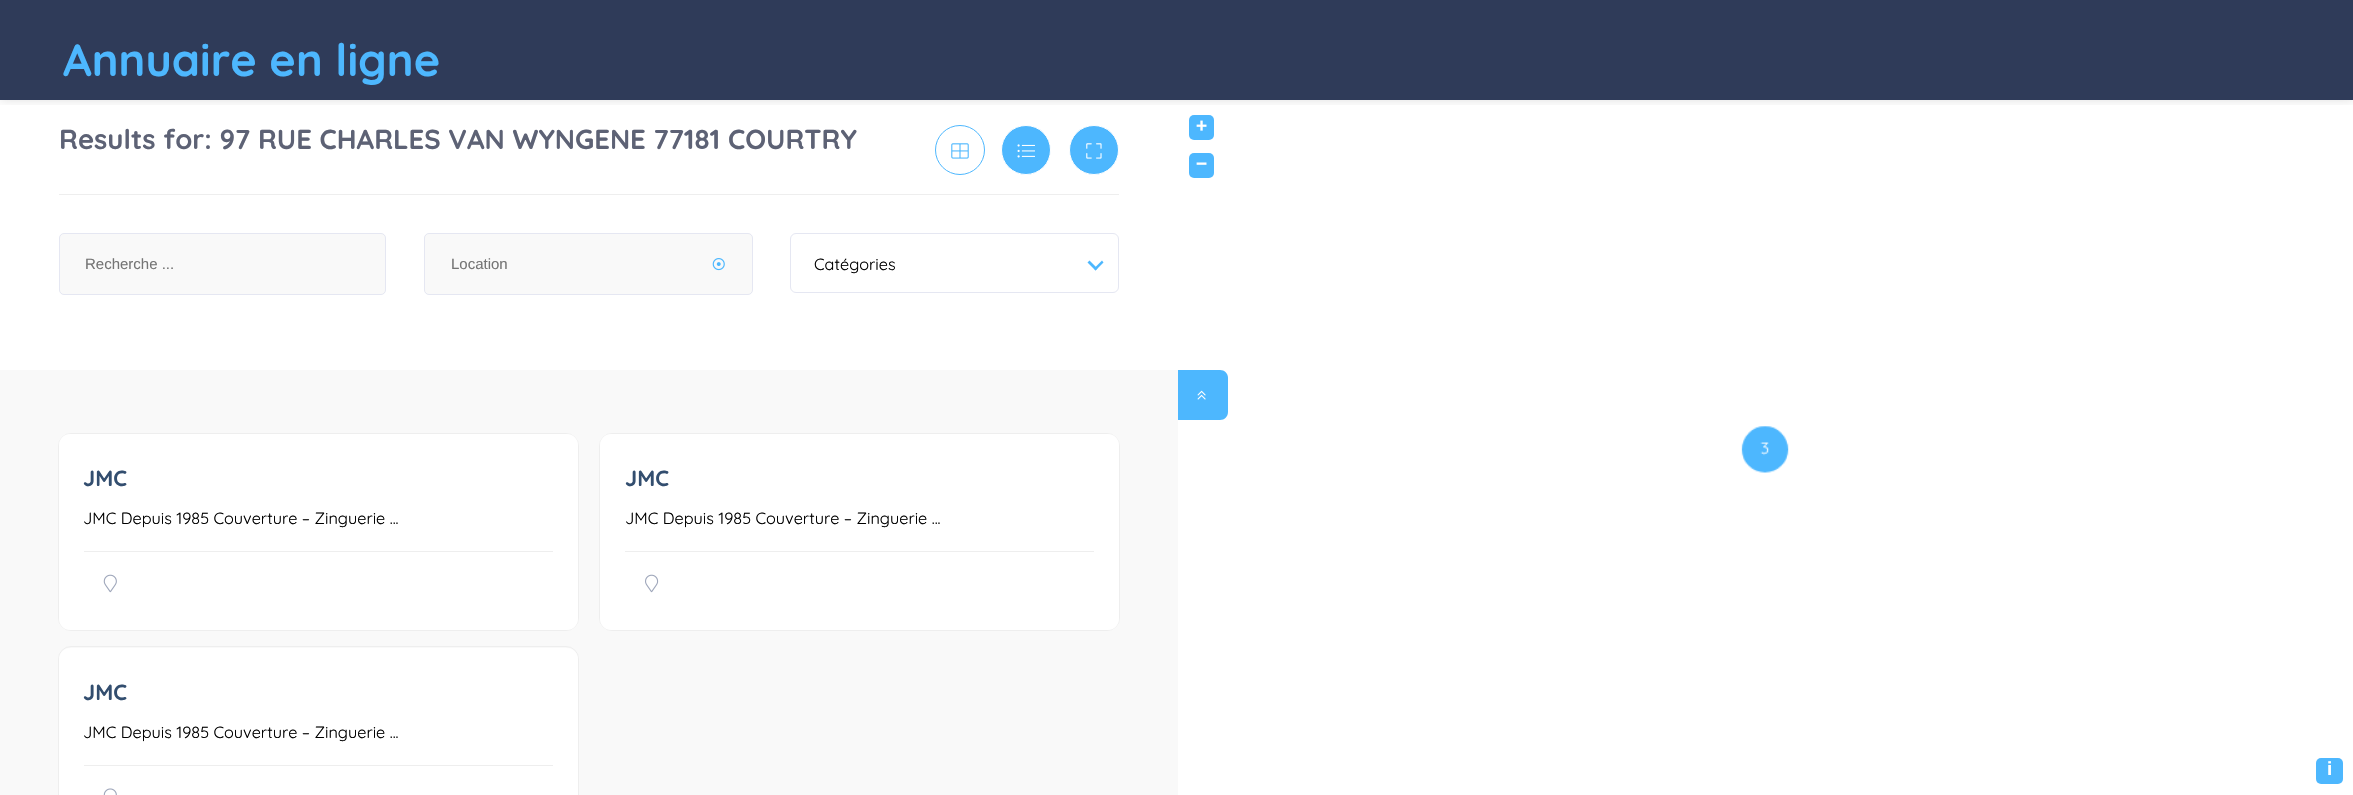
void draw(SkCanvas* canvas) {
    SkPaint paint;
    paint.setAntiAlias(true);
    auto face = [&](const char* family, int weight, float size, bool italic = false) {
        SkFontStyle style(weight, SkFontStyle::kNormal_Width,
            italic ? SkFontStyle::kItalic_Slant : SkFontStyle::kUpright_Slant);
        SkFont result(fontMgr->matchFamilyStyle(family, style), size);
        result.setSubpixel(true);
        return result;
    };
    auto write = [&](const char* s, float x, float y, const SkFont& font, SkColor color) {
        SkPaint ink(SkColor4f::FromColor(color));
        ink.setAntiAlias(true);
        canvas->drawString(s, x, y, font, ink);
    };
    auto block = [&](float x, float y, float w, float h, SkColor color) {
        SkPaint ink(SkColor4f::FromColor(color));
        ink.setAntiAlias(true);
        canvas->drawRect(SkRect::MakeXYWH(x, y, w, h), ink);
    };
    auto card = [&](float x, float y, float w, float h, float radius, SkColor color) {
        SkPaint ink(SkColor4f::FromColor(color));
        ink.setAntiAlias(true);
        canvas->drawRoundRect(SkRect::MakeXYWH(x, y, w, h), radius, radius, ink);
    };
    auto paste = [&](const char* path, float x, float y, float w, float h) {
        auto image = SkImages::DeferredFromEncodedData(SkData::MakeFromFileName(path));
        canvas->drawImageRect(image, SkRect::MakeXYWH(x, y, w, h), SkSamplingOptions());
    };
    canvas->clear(SkColorSetRGB(47, 59, 89));
    block(1178, 100, 1175, 695, SK_ColorWHITE);
    block(0, 100, 1178, 270, SK_ColorWHITE);
    card(1189, 115, 25, 25, 5, SkColorSetRGB(77, 183, 254));
    canvas->save();
    canvas->clipRect(SkRect::MakeXYWH(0, 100, 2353, 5));
    paint.setColor(SkColorSetARGB(31, 0, 0, 0));
    paint.setMaskFilter(SkMaskFilter::MakeBlur(kNormal_SkBlurStyle, 5));
    canvas->drawRect(SkRect::MakeXYWH(0, 0, 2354, 100), paint);
    paint.setMaskFilter(nullptr);
    canvas->restore();
    auto kFont1 = face("Quicksand", 700, 45);
    write("Annuaire en ligne", 63, 76, kFont1, SkColorSetRGB(77, 183, 254));
    block(0, 370, 1178, 425, SkColorSetRGB(249, 249, 249));
    block(59, 194, 1060, 1, SkColorSetRGB(238, 238, 238));
    auto kFont2 = face("Quicksand", 700, 27.5f);
    write("Results for: 97 RUE CHARLES VAN WYNGENE 77181 COURTRY", 59, 149, kFont2, SkColorSetRGB(93, 98, 117));
    paint.setStyle(SkPaint::kStroke_Style);
    paint.setStrokeWidth(1);
    paint.setColor(SkColorSetRGB(77, 183, 254));
    canvas->drawCircle(960, 150, 24.5f, paint);
    paste("pic1.png", 951, 143, 18, 16);
    paint.setStyle(SkPaint::kFill_Style);
    canvas->drawCircle(1026, 150, 24.5f, paint);
    paint.setStyle(SkPaint::kStroke_Style);
    paint.setColor(SK_ColorWHITE);
    canvas->drawCircle(1026, 150, 24.5f, paint);
    paste("pic2.png", 1017, 144, 18, 14);
    paint.setStyle(SkPaint::kFill_Style);
    paint.setColor(SkColorSetRGB(77, 183, 254));
    canvas->drawCircle(1094, 150, 24.5f, paint);
    paint.setStyle(SkPaint::kStroke_Style);
    paint.setColor(SK_ColorWHITE);
    canvas->drawCircle(1094, 150, 24.5f, paint);
    paste("pic3.png", 1086, 143, 16, 16);
    paint.setStyle(SkPaint::kFill_Style);
    paint.setColor(SkColorSetRGB(249, 249, 249));
    canvas->drawRoundRect(SkRect::MakeXYWH(59.5f, 233.5f, 326, 61), 4.5f, 4.5f, paint);
    paint.setStyle(SkPaint::kStroke_Style);
    paint.setColor(SkColorSetRGB(229, 231, 242));
    canvas->drawRoundRect(SkRect::MakeXYWH(59.5f, 233.5f, 326, 61), 4.5f, 4.5f, paint);
    auto kFont3 = face("Liberation Sans", 400, 15);
    write("Recherche ...", 85, 269, kFont3, SkColorSetRGB(117, 117, 117));
    paint.setStyle(SkPaint::kFill_Style);
    paint.setColor(SkColorSetRGB(249, 249, 249));
    canvas->drawRoundRect(SkRect::MakeXYWH(424.5f, 233.5f, 328, 61), 4.5f, 4.5f, paint);
    paint.setStyle(SkPaint::kStroke_Style);
    paint.setColor(SkColorSetRGB(229, 231, 242));
    canvas->drawRoundRect(SkRect::MakeXYWH(424.5f, 233.5f, 328, 61), 4.5f, 4.5f, paint);
    write("Location", 451, 269, kFont3, SkColorSetRGB(117, 117, 117));
    paste("pic4.png", 712, 258, 13, 13);
    canvas->drawRoundRect(SkRect::MakeXYWH(790.5f, 233.5f, 328, 59), 5.5f, 5.5f, paint);
    auto kFont4 = face("Quicksand", 300, 16.25f);
    write("Catégories", 814, 270, kFont4, SK_ColorBLACK);
    paint.setStyle(SkPaint::kFill_Style);
    paint.setColor(SkColorSetRGB(77, 183, 254));
    canvas->drawPath(SkPathBuilder().moveTo(1102, 260.5f).lineTo(1103.5f, 262.5f).lineTo(1095.5f, 270.5f).lineTo(1094, 268.5f).close().detach(), paint);
    canvas->drawPath(SkPathBuilder().moveTo(1089.5f, 260.5f).lineTo(1097.5f, 268.5f).lineTo(1095.5f, 270.5f).lineTo(1087.5f, 262.5f).close().detach(), paint);
    canvas->drawPath(SkPathBuilder().moveTo(1178, 370).lineTo(1220, 370).cubicTo(1224.5f, 370, 1228, 373.5f, 1228, 378).lineTo(1228, 412).cubicTo(1228, 416.5f, 1224.5f, 420, 1220, 420).lineTo(1178, 420).close().detach(), paint);
    paste("pic5.png", 1197, 390, 9, 10);
    paint.setStyle(SkPaint::kStroke_Style);
    paint.setColor(SkColorSetRGB(238, 238, 238));
    canvas->drawRoundRect(SkRect::MakeXYWH(58.5f, 433.5f, 520, 197), 12.5f, 12.5f, paint);
    card(59, 434, 519, 196, 11, SK_ColorWHITE);
    auto kFont5 = face("Quicksand", 700, 22);
    write("JMC", 83, 486, kFont5, SkColorSetRGB(51, 78, 111));
    write("JMC Depuis 1985 Couverture – Zinguerie ...", 83, 524, kFont4, SK_ColorBLACK);
    block(84, 551, 469, 1, SkColorSetRGB(238, 238, 238));
    paste("pic6.png", 103, 574, 14, 19);
    canvas->drawRoundRect(SkRect::MakeXYWH(599.5f, 433.5f, 520, 197), 12.5f, 12.5f, paint);
    card(600, 434, 519, 196, 11, SK_ColorWHITE);
    write("JMC", 625, 486, kFont5, SkColorSetRGB(51, 78, 111));
    write("JMC Depuis 1985 Couverture – Zinguerie ...", 625, 524, kFont4, SK_ColorBLACK);
    block(625, 551, 469, 1, SkColorSetRGB(238, 238, 238));
    paste("pic7.png", 645, 574, 14, 19);
    canvas->drawRoundRect(SkRect::MakeXYWH(58.5f, 646.5f, 520, 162), 12.5f, 12.5f, paint);
    card(59, 648, 519, 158, 11, SK_ColorWHITE);
    write("JMC", 83, 700, kFont5, SkColorSetRGB(51, 78, 111));
    write("JMC Depuis 1985 Couverture – Zinguerie ...", 83, 738, kFont4, SK_ColorBLACK);
    block(84, 765, 469, 1, SkColorSetRGB(238, 238, 238));
    paste("pic8.png", 103, 788, 14, 7);
    auto kFont6 = face("Liberation Sans", 700, 19);
    write("+", 1196, 132, kFont6, SK_ColorWHITE);
    card(1189, 153, 25, 25, 5, SkColorSetRGB(77, 183, 254));
    write("−", 1196, 170, kFont6, SK_ColorWHITE);
    card(2316, 758, 27, 26, 5, SkColorSetRGB(77, 183, 254));
    write("i", 2327, 775, kFont6, SK_ColorWHITE);
    paste("pic9.png", 1741, 426, 48, 47);
}
